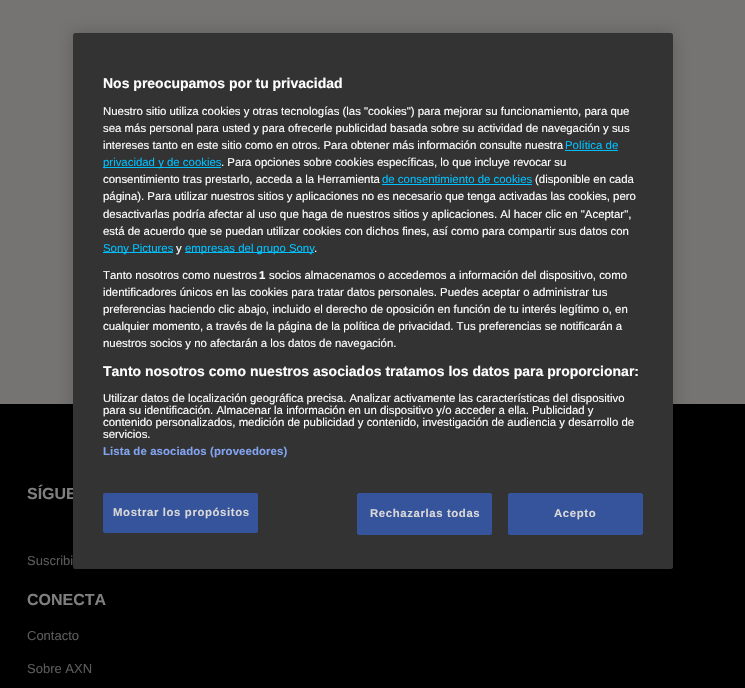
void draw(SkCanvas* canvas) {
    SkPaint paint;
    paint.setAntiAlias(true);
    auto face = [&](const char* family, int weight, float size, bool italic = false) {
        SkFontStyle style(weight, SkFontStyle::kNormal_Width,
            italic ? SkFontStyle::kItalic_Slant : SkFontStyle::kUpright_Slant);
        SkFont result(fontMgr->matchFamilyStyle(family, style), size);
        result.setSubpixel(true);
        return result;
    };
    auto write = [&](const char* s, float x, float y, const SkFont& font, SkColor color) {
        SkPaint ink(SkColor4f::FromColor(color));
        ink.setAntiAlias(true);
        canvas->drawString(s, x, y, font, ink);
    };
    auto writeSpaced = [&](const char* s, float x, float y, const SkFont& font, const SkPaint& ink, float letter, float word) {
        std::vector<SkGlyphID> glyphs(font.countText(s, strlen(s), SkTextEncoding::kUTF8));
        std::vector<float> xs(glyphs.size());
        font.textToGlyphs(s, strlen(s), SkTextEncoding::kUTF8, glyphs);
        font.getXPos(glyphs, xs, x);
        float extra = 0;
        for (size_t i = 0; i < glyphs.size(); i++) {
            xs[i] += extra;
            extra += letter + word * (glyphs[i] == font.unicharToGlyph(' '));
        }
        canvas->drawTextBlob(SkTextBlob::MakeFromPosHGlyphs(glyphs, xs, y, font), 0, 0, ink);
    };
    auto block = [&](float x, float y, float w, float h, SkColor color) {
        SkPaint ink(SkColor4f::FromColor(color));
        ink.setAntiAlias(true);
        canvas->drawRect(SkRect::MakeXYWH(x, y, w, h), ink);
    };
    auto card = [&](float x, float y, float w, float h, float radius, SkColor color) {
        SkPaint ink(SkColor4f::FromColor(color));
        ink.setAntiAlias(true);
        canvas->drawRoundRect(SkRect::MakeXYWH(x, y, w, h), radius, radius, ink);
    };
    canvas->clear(SkColorSetRGB(118, 116, 115));
    block(0, 404, 745, 284, SK_ColorBLACK);
    paint.setColor(SkColorSetARGB(51, 0, 0, 0));
    paint.setMaskFilter(SkMaskFilter::MakeBlur(kNormal_SkBlurStyle, 9));
    canvas->drawRoundRect(SkRect::MakeXYWH(73, 33, 600, 536), 2.5f, 2.5f, paint);
    paint.setMaskFilter(nullptr);
    auto kFont1 = face("Liberation Sans", 700, 16);
    write("SÍGUE", 27, 499, kFont1, SkColorSetRGB(127, 127, 127));
    card(73, 33, 600, 536, 2.5f, SkColorSetRGB(51, 51, 51));
    auto kFont2 = face("Liberation Sans", 700, 14);
    write("Nos preocupamos por tu privacidad", 103, 88, kFont2, SK_ColorWHITE);
    auto kFont3 = face("Liberation Sans", 400, 11.4f);
    write("Nuestro sitio utiliza cookies y otras tecnologías (las \"cookies\") para mejorar su funcionamiento, para que", 103, 115, kFont3, SK_ColorWHITE);
    write("sea más personal para usted y para ofrecerle publicidad basada sobre su actividad de navegación y sus", 103, 132, kFont3, SK_ColorWHITE);
    write("intereses tanto en este sitio como en otros. Para obtener más información consulte nuestra", 103, 149, kFont3, SK_ColorWHITE);
    write("Política de", 565, 149, kFont3, SkColorSetRGB(0, 191, 255));
    block(565, 150, 53, 1, SkColorSetRGB(0, 191, 255));
    block(103, 167, 118, 1, SkColorSetRGB(0, 191, 255));
    write("privacidad y de cookies", 103, 166, kFont3, SkColorSetRGB(0, 191, 255));
    write(". Para opciones sobre cookies específicas, lo que incluye revocar su", 221, 166, kFont3, SK_ColorWHITE);
    write("consentimiento tras prestarlo, acceda a la Herramienta", 103, 183, kFont3, SK_ColorWHITE);
    write("de consentimiento de cookies", 382, 183, kFont3, SkColorSetRGB(0, 191, 255));
    block(382, 184, 150, 1, SkColorSetRGB(0, 191, 255));
    write("(disponible en cada", 535, 183, kFont3, SK_ColorWHITE);
    write("página). Para utilizar nuestros sitios y aplicaciones no es necesario que tenga activadas las cookies, pero", 103, 200, kFont3, SK_ColorWHITE);
    write("desactivarlas podría afectar al uso que haga de nuestros sitios y aplicaciones. Al hacer clic en \"Aceptar\",", 103, 218, kFont3, SK_ColorWHITE);
    write("está de acuerdo que se puedan utilizar cookies con dichos fines, así como para compartir sus datos con", 103, 235, kFont3, SK_ColorWHITE);
    block(103, 252, 70, 1, SkColorSetRGB(0, 191, 255));
    write("Sony Pictures", 103, 252, kFont3, SkColorSetRGB(0, 191, 255));
    write("y", 176, 252, kFont3, SK_ColorWHITE);
    block(185, 252, 129, 1, SkColorSetRGB(0, 191, 255));
    write("empresas del grupo Sony", 185, 252, kFont3, SkColorSetRGB(0, 191, 255));
    write(".", 314, 252, kFont3, SK_ColorWHITE);
    write("Tanto nosotros como nuestros", 103, 279, kFont3, SK_ColorWHITE);
    auto kFont4 = face("Liberation Sans", 700, 11.4f);
    write("1", 259, 279, kFont4, SK_ColorWHITE);
    write("socios almacenamos o accedemos a información del dispositivo, como", 269, 279, kFont3, SK_ColorWHITE);
    write("identificadores únicos en las cookies para tratar datos personales. Puedes aceptar o administrar tus", 103, 296, kFont3, SK_ColorWHITE);
    write("preferencias haciendo clic abajo, incluido el derecho de oposición en función de tu interés legítimo o, en", 103, 313, kFont3, SK_ColorWHITE);
    write("cualquier momento, a través de la página de la política de privacidad. Tus preferencias se notificarán a", 103, 330, kFont3, SK_ColorWHITE);
    write("nuestros socios y no afectarán a los datos de navegación.", 103, 347, kFont3, SK_ColorWHITE);
    write("Tanto nosotros como nuestros asociados tratamos los datos para proporcionar:", 103, 376, kFont2, SK_ColorWHITE);
    write("Utilizar datos de localización geográfica precisa. Analizar activamente las características del dispositivo", 103, 402, kFont3, SK_ColorWHITE);
    write("para su identificación. Almacenar la información en un dispositivo y/o acceder a ella. Publicidad y", 103, 414, kFont3, SK_ColorWHITE);
    write("contenido personalizados, medición de publicidad y contenido, investigación de audiencia y desarrollo de", 103, 426, kFont3, SK_ColorWHITE);
    write("servicios.", 103, 438, kFont3, SK_ColorWHITE);
    paint.setColor(SkColorSetRGB(130, 164, 242));
    writeSpaced("Lista de asociados (proveedores)", 103, 455, kFont4, paint, 0.1f, 0);
    card(103, 493, 155, 40, 2, SkColorSetRGB(53, 84, 156));
    paint.setColor(SkColorSetRGB(218, 217, 216));
    writeSpaced("Mostrar los propósitos", 113, 516, kFont4, paint, 0.6f, 0);
    paint.setColor(SkColorSetRGB(53, 84, 156));
    canvas->drawRoundRect(SkRect::MakeXYWH(357.5f, 493.5f, 134, 41), 1.5f, 1.5f, paint);
    paint.setStyle(SkPaint::kStroke_Style);
    paint.setStrokeWidth(1);
    canvas->drawRoundRect(SkRect::MakeXYWH(357.5f, 493.5f, 134, 41), 1.5f, 1.5f, paint);
    paint.setStyle(SkPaint::kFill_Style);
    paint.setColor(SkColorSetRGB(218, 217, 216));
    writeSpaced("Rechazarlas todas", 370, 517, kFont4, paint, 0.6f, 0);
    paint.setColor(SkColorSetRGB(53, 84, 156));
    canvas->drawRoundRect(SkRect::MakeXYWH(508.5f, 493.5f, 134, 41), 1.5f, 1.5f, paint);
    paint.setStyle(SkPaint::kStroke_Style);
    canvas->drawRoundRect(SkRect::MakeXYWH(508.5f, 493.5f, 134, 41), 1.5f, 1.5f, paint);
    paint.setStyle(SkPaint::kFill_Style);
    paint.setColor(SkColorSetRGB(218, 217, 216));
    writeSpaced("Acepto", 554, 517, kFont4, paint, 0.6f, 0);
    auto kFont5 = face("Liberation Sans", 400, 13);
    write("Suscribi", 27, 565, kFont5, SkColorSetRGB(91, 91, 91));
    write("CONECTA", 27, 605, kFont1, SkColorSetRGB(127, 127, 127));
    write("Contacto", 27, 640, kFont5, SkColorSetRGB(91, 91, 91));
    write("Sobre AXN", 27, 673, kFont5, SkColorSetRGB(91, 91, 91));
}
